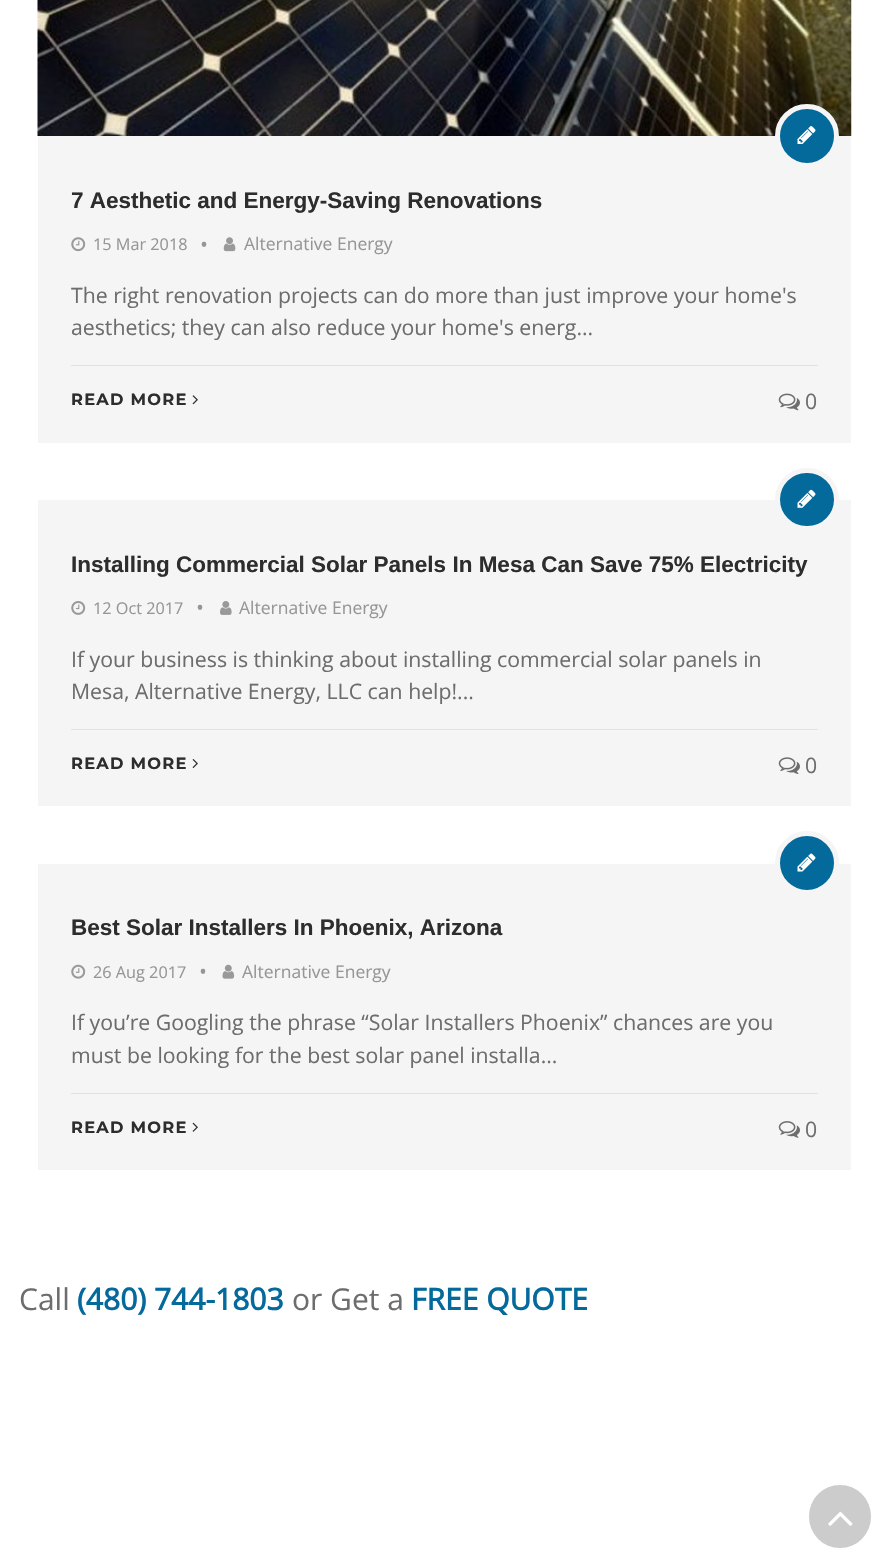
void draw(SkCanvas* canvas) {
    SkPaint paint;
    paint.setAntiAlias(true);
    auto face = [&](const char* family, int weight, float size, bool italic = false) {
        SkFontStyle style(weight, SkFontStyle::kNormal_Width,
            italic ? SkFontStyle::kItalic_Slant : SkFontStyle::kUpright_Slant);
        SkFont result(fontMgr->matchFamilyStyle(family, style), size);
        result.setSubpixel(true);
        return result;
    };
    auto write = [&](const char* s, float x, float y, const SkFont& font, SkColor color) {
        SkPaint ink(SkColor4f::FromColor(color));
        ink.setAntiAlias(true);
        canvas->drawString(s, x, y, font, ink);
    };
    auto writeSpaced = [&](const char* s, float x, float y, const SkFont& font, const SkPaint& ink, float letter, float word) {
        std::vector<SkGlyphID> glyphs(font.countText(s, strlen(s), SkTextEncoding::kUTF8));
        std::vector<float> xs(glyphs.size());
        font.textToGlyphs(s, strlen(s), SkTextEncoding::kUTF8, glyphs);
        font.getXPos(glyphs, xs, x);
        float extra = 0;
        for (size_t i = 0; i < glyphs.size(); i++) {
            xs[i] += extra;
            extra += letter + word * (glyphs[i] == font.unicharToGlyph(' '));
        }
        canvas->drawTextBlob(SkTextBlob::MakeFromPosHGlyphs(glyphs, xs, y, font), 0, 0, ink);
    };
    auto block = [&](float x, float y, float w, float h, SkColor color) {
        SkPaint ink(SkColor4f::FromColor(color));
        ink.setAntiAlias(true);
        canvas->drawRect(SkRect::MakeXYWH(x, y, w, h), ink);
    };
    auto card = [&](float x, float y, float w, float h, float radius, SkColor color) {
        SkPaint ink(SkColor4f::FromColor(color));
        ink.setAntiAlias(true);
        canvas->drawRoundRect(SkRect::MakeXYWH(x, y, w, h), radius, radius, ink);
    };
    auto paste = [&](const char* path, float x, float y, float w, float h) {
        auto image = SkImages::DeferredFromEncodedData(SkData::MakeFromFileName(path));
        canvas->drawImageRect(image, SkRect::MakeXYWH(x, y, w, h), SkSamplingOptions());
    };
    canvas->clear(SK_ColorWHITE);
    paste("pic1.png", 37, 0, 815, 136);
    block(38, 136, 813, 307, SkColorSetRGB(245, 245, 245));
    paint.setColor(SkColorSetRGB(4, 105, 155));
    canvas->drawCircle(807, 136, 29.5f, paint);
    paint.setStyle(SkPaint::kStroke_Style);
    paint.setStrokeWidth(5);
    paint.setColor(SkColorSetRGB(245, 245, 245));
    canvas->drawCircle(807, 136, 29.5f, paint);
    paste("pic2.png", 797, 126, 19, 18);
    auto kFont1 = face("Arimo", 700, 22.5f);
    write("7 Aesthetic and Energy-Saving Renovations", 71, 208, kFont1, SkColorSetRGB(45, 45, 45));
    paste("pic3.png", 71, 237, 15, 15);
    auto kFont2 = face("Open Sans", 400, 16.25f);
    write("15 Mar 2018", 93, 250, kFont2, SkColorSetRGB(150, 150, 150));
    auto kFont3 = face("Open Sans", 400, 21.25f);
    write("•", 200, 252, kFont3, SkColorSetRGB(150, 150, 150));
    paste("pic4.png", 223, 237, 13, 15);
    auto kFont4 = face("Open Sans", 400, 17.5f);
    write("Alternative Energy", 244, 250, kFont4, SkColorSetRGB(150, 150, 150));
    write("The right renovation projects can do more than just improve your home's", 71, 303, kFont3, SkColorSetRGB(109, 109, 109));
    write("aesthetics; they can also reduce your home's energ...", 71, 335, kFont3, SkColorSetRGB(109, 109, 109));
    auto kFont5 = face("Montserrat", 100, 16.25f);
    paint.setStyle(SkPaint::kFill_Style);
    paint.setColor(SkColorSetRGB(45, 45, 45));
    writeSpaced("READ MORE", 71, 405, kFont5, paint, 1.25f, 0);
    paste("pic5.png", 192, 395, 6, 10);
    block(71, 365, 747, 1, SkColorSetRGB(226, 226, 226));
    paste("pic6.png", 778, 393, 22, 18);
    write("0", 805, 409, kFont3, SkColorSetRGB(109, 109, 109));
    block(38, 500, 813, 306, SkColorSetRGB(245, 245, 245));
    paint.setColor(SkColorSetRGB(4, 105, 155));
    canvas->drawRoundRect(SkRect::MakeXYWH(777.5f, 470.5f, 59, 58), 29, 29, paint);
    paint.setStyle(SkPaint::kStroke_Style);
    paint.setColor(SkColorSetRGB(245, 245, 245));
    canvas->drawRoundRect(SkRect::MakeXYWH(777.5f, 470.5f, 59, 58), 29, 29, paint);
    paste("pic7.png", 797, 489, 19, 19);
    write("Installing Commercial Solar Panels In Mesa Can Save 75% Electricity", 71, 572, kFont1, SkColorSetRGB(45, 45, 45));
    paste("pic8.png", 71, 601, 15, 14);
    write("12 Oct 2017", 93, 614, kFont2, SkColorSetRGB(150, 150, 150));
    write("•", 196, 615, kFont3, SkColorSetRGB(150, 150, 150));
    paste("pic9.png", 220, 601, 12, 14);
    write("Alternative Energy", 239, 614, kFont4, SkColorSetRGB(150, 150, 150));
    write("If your business is thinking about installing commercial solar panels in", 71, 667, kFont3, SkColorSetRGB(109, 109, 109));
    write("Mesa, Alternative Energy, LLC can help!...", 71, 699, kFont3, SkColorSetRGB(109, 109, 109));
    paint.setStyle(SkPaint::kFill_Style);
    paint.setColor(SkColorSetRGB(45, 45, 45));
    writeSpaced("READ MORE", 71, 769, kFont5, paint, 1.25f, 0);
    paste("pic10.png", 192, 759, 6, 9);
    block(71, 729, 747, 1, SkColorSetRGB(226, 226, 226));
    paste("pic11.png", 778, 757, 22, 17);
    write("0", 805, 773, kFont3, SkColorSetRGB(109, 109, 109));
    block(38, 864, 813, 306, SkColorSetRGB(245, 245, 245));
    paint.setColor(SkColorSetRGB(4, 105, 155));
    canvas->drawCircle(807, 863, 29.5f, paint);
    paint.setStyle(SkPaint::kStroke_Style);
    paint.setColor(SkColorSetRGB(245, 245, 245));
    canvas->drawCircle(807, 863, 29.5f, paint);
    paste("pic12.png", 797, 853, 19, 19);
    write("Best Solar Installers In Phoenix, Arizona", 71, 935, kFont1, SkColorSetRGB(45, 45, 45));
    paste("pic13.png", 71, 964, 15, 15);
    write("26 Aug 2017", 93, 978, kFont2, SkColorSetRGB(150, 150, 150));
    write("•", 199, 979, kFont3, SkColorSetRGB(150, 150, 150));
    paste("pic14.png", 222, 964, 13, 15);
    write("Alternative Energy", 242, 978, kFont4, SkColorSetRGB(150, 150, 150));
    write("If you’re Googling the phrase “Solar Installers Phoenix” chances are you", 71, 1030, kFont3, SkColorSetRGB(109, 109, 109));
    write("must be looking for the best solar panel installa...", 71, 1063, kFont3, SkColorSetRGB(109, 109, 109));
    paint.setStyle(SkPaint::kFill_Style);
    paint.setColor(SkColorSetRGB(45, 45, 45));
    writeSpaced("READ MORE", 71, 1133, kFont5, paint, 1.25f, 0);
    paste("pic15.png", 192, 1122, 6, 10);
    block(71, 1093, 747, 1, SkColorSetRGB(226, 226, 226));
    paste("pic16.png", 778, 1121, 22, 17);
    write("0", 805, 1137, kFont3, SkColorSetRGB(109, 109, 109));
    auto kFont6 = face("Open Sans", 400, 30);
    write("Call", 19, 1310, kFont6, SkColorSetRGB(109, 109, 109));
    auto kFont7 = face("Open Sans", 700, 30);
    write("(480) 744-1803", 77, 1310, kFont7, SkColorSetRGB(4, 105, 155));
    write("or Get a", 292, 1310, kFont6, SkColorSetRGB(109, 109, 109));
    write("FREE QUOTE", 411, 1310, kFont7, SkColorSetRGB(4, 105, 155));
    card(809, 1485, 62, 63, 31, SkColorSetRGB(204, 204, 204));
    paste("pic17.png", 828, 1511, 25, 15);
}
